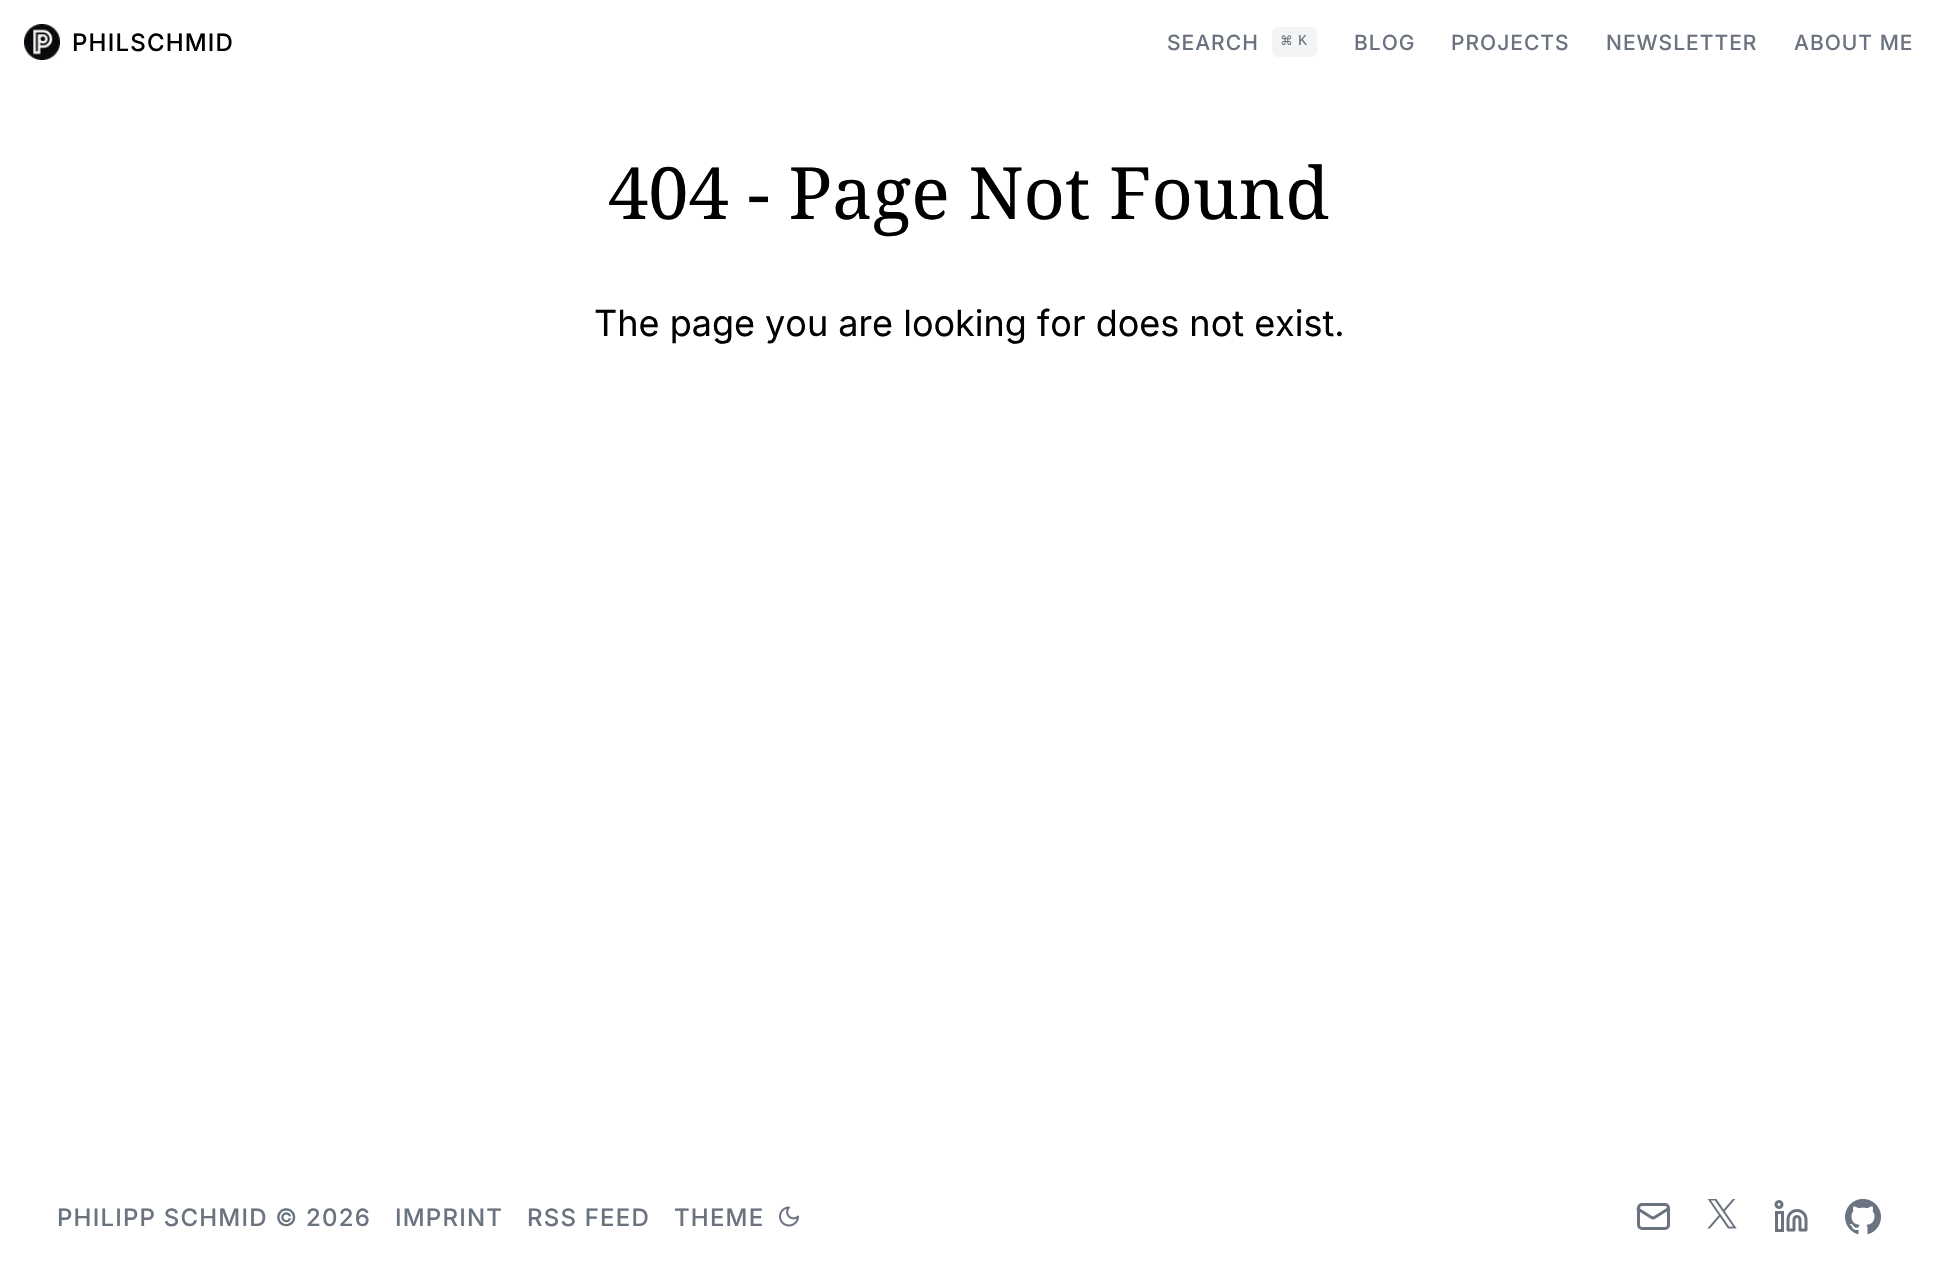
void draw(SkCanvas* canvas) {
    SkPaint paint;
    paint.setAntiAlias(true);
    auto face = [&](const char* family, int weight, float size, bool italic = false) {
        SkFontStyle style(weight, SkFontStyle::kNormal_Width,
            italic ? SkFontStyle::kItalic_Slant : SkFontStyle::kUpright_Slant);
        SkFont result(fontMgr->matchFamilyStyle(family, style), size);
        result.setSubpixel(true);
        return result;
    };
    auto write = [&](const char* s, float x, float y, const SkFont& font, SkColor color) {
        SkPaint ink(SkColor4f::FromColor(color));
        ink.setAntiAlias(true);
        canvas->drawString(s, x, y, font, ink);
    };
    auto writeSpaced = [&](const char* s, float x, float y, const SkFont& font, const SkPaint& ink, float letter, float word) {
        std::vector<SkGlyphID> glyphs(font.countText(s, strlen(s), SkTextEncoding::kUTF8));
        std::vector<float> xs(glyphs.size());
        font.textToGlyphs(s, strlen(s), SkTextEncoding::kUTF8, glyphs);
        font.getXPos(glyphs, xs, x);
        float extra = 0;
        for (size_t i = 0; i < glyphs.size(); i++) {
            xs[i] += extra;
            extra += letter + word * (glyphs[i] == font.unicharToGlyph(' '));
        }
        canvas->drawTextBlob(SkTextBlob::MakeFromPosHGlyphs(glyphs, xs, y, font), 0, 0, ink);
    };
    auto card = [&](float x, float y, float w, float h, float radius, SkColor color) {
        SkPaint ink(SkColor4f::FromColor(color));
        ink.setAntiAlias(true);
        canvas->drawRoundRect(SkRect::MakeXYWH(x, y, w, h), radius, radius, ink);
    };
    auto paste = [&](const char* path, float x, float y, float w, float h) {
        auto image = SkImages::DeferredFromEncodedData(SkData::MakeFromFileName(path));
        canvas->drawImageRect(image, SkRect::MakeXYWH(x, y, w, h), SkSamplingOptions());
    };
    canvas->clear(SK_ColorWHITE);
    paste("pic1.png", 24, 24, 36, 36);
    auto kFont1 = face("Inter", 500, 24);
    paint.setColor(SK_ColorBLACK);
    writeSpaced("PHILSCHMID", 72, 51, kFont1, paint, 1.2f, 0);
    auto kFont2 = face("Inter", 500, 21);
    paint.setColor(SkColorSetRGB(107, 114, 128));
    writeSpaced("SEARCH", 1167, 50, kFont2, paint, 1, 0);
    card(1272, 27, 45, 30, 6, SkColorSetRGB(243, 244, 246));
    auto kFont3 = face("DejaVu Sans Mono", 400, 18);
    writeSpaced("⌘", 1281, 47, kFont3, paint, 1, 0);
    auto kFont4 = face("Liberation Mono", 400, 15);
    writeSpaced("K", 1298, 45, kFont4, paint, 1, 0);
    writeSpaced("BLOG", 1354, 50, kFont2, paint, 1, 0);
    writeSpaced("PROJECTS", 1451, 50, kFont2, paint, 1, 0);
    writeSpaced("NEWSLETTER", 1606, 50, kFont2, paint, 1, 0);
    writeSpaced("ABOUT ME", 1794, 50, kFont2, paint, 1, 0);
    auto kFont5 = face("Noto Serif", 400, 72);
    write("404 - Page Not Found", 608, 219, kFont5, SK_ColorBLACK);
    auto kFont6 = face("Inter", 400, 36);
    write("The page you are looking for does not exist.", 594, 336, kFont6, SK_ColorBLACK);
    writeSpaced("PHILIPP SCHMID © 2026", 57, 1226, kFont1, paint, 1.2f, 0);
    writeSpaced("IMPRINT", 395, 1226, kFont1, paint, 1.2f, 0);
    writeSpaced("RSS FEED", 527, 1226, kFont1, paint, 1.2f, 0);
    writeSpaced("THEME", 674, 1226, kFont1, paint, 1.2f, 0);
    paste("pic2.png", 779, 1206, 20, 21);
    paint.setStyle(SkPaint::kStroke_Style);
    paint.setStrokeWidth(3);
    canvas->drawRoundRect(SkRect::MakeXYWH(1638.5f, 1204.5f, 30, 24), 3.5f, 3.5f, paint);
    paint.setStrokeCap(SkPaint::kRound_Cap);
    paint.setStrokeJoin(SkPaint::kRound_Join);
    canvas->drawPath(SkPathBuilder().moveTo(1668, 1209).lineTo(1654.5f, 1217.5f).cubicTo(1653.5f, 1218, 1652.5f, 1218, 1651.5f, 1217.5f).lineTo(1638, 1209).detach(), paint);
    paste("pic3.png", 1707, 1199, 30, 30);
    paste("pic4.png", 1774, 1200, 34, 32);
    paste("pic5.png", 1845, 1199, 36, 35);
}
